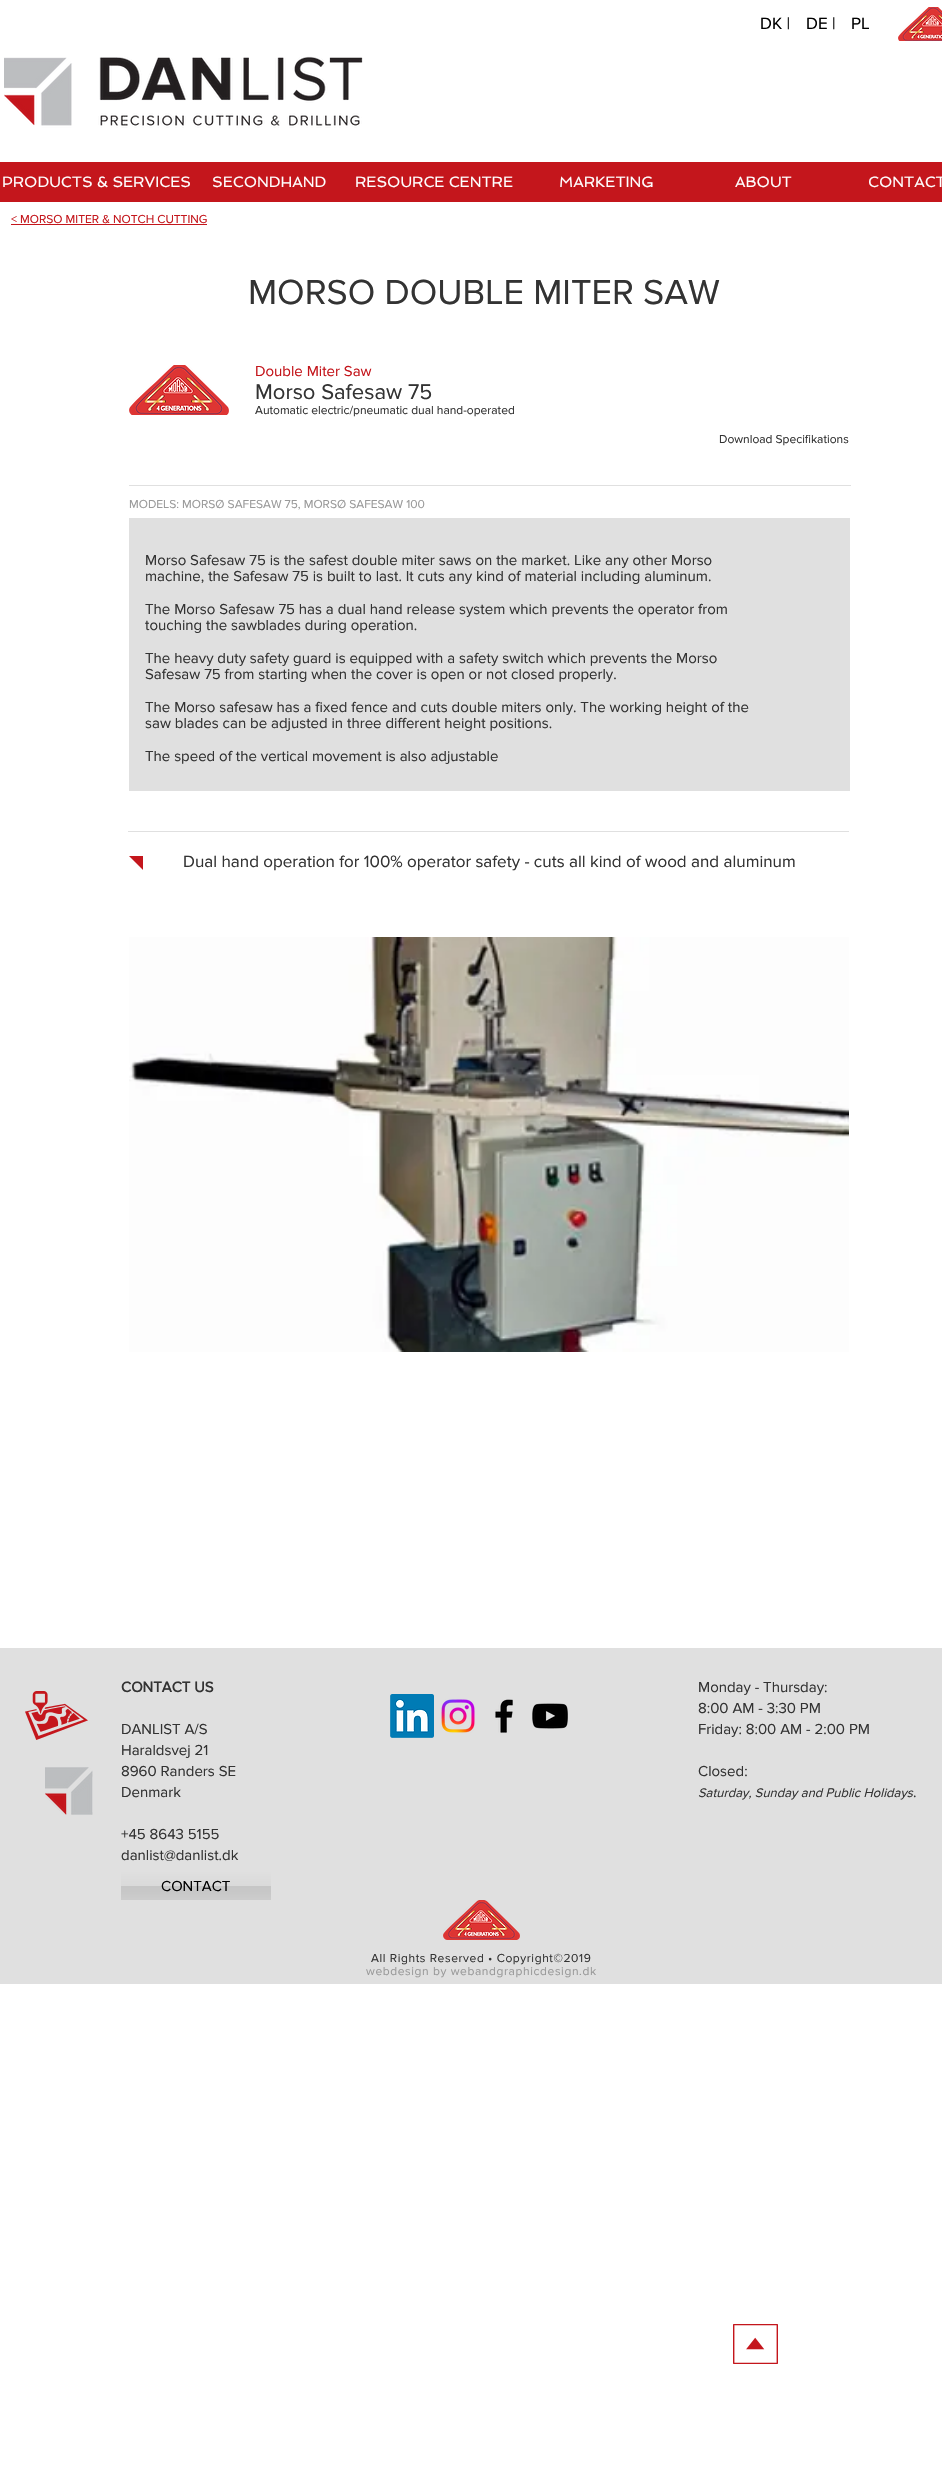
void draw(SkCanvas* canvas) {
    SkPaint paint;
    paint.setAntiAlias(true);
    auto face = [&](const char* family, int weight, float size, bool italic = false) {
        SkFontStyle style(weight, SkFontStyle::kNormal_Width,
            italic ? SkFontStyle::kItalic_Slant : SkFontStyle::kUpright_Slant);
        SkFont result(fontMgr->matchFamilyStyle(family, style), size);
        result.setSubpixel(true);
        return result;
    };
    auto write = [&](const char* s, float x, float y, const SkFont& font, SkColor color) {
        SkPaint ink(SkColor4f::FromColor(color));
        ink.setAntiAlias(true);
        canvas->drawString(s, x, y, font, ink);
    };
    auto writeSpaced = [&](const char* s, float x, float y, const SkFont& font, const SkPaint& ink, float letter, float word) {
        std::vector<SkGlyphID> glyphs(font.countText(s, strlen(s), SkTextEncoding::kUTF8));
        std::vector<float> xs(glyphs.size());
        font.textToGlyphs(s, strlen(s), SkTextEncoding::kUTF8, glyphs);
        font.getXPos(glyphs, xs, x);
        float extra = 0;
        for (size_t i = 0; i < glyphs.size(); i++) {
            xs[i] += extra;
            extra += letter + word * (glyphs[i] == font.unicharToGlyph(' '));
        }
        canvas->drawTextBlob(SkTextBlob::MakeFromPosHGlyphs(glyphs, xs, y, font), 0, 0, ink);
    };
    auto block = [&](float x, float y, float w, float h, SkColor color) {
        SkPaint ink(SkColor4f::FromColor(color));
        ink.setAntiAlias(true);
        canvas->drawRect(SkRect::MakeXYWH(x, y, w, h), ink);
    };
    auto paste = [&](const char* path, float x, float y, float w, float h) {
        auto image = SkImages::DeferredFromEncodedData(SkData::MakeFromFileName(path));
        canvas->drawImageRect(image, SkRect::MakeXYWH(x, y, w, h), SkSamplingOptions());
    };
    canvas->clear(SK_ColorWHITE);
    paste("pic1.png", 4, 56, 359, 72);
    block(0, 162, 942, 40, SkColorSetRGB(196, 22, 28));
    auto kFont1 = face("Spinnaker", 400, 15);
    write("PRODUCTS & SERVICES", 2, 187, kFont1, SK_ColorWHITE);
    write("SECONDHAND", 212, 187, kFont1, SK_ColorWHITE);
    write("RESOURCE CENTRE", 355, 187, kFont1, SK_ColorWHITE);
    auto kFont2 = face("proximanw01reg", 400, 17);
    write("DK |", 760, 29, kFont2, SK_ColorBLACK);
    write("DE |", 806, 29, kFont2, SK_ColorBLACK);
    write("PL", 851, 29, kFont2, SK_ColorBLACK);
    paste("pic2.png", 898, 7, 44, 34);
    write("MARKETING", 559, 187, kFont1, SK_ColorWHITE);
    write("ABOUT", 735, 187, kFont1, SK_ColorWHITE);
    write("CONTACT", 868, 187, kFont1, SK_ColorWHITE);
    auto kFont3 = face("proximanw01reg", 400, 12);
    write("< MORSO MITER & NOTCH CUTTING", 11, 223, kFont3, SkColorSetRGB(196, 22, 28));
    block(11, 224, 196, 1, SkColorSetRGB(196, 22, 28));
    auto kFont4 = face("proximanw01reg", 400, 36);
    write("MORSO DOUBLE MITER SAW", 248, 304, kFont4, SkColorSetRGB(51, 51, 51));
    paste("pic3.png", 129, 365, 100, 50);
    auto kFont5 = face("proximanw01reg", 400, 15);
    write("Double Miter Saw", 255, 376, kFont5, SkColorSetRGB(196, 22, 28));
    auto kFont6 = face("proximanw01reg", 400, 22);
    write("Morso Safesaw 75", 255, 399, kFont6, SkColorSetRGB(51, 51, 51));
    write("Automatic electric/pneumatic dual hand-operated", 255, 414, kFont3, SkColorSetRGB(51, 51, 51));
    write("Download Specifikations", 719, 443, kFont3, SkColorSetRGB(51, 51, 51));
    block(129, 485, 722, 1, SkColorSetRGB(224, 224, 224));
    write("MODELS: MORSØ SAFESAW 75, MORSØ SAFESAW 100", 129, 508, kFont3, SkColorSetRGB(153, 153, 153));
    block(129, 518, 721, 273, SkColorSetRGB(224, 224, 224));
    write("Morso Safesaw 75 is the safest double miter saws on the market. Like any other Morso", 145, 565, kFont5, SkColorSetRGB(51, 51, 51));
    write("machine, the Safesaw 75 is built to last. It cuts any kind of material including aluminum.", 145, 581, kFont5, SkColorSetRGB(51, 51, 51));
    write("The Morso Safesaw 75 has a dual hand release system which prevents the operator from", 145, 614, kFont5, SkColorSetRGB(51, 51, 51));
    write("touching the sawblades during operation.", 145, 630, kFont5, SkColorSetRGB(51, 51, 51));
    write("The heavy duty safety guard is equipped with a safety switch which prevents the Morso", 145, 663, kFont5, SkColorSetRGB(51, 51, 51));
    write("Safesaw 75 from starting when the cover is open or not closed properly.", 145, 679, kFont5, SkColorSetRGB(51, 51, 51));
    write("The Morso safesaw has a fixed fence and cuts double miters only. The working height of the", 145, 712, kFont5, SkColorSetRGB(51, 51, 51));
    write("saw blades can be adjusted in three different height positions.", 145, 728, kFont5, SkColorSetRGB(51, 51, 51));
    write("The speed of the vertical movement is also adjustable", 145, 761, kFont5, SkColorSetRGB(51, 51, 51));
    block(128, 831, 721, 1, SkColorSetRGB(224, 224, 224));
    paste("pic4.png", 129, 856, 14, 14);
    write("Dual hand operation for 100% operator safety - cuts all kind of wood and aluminum", 183, 867, kFont2, SkColorSetRGB(51, 51, 51));
    paste("pic5.png", 129, 937, 720, 415);
    block(0, 1648, 942, 336, SkColorSetRGB(224, 224, 224));
    paste("pic6.png", 25, 1691, 63, 49);
    auto kFont7 = face("proximanw01reg", 700, 15);
    write("CONTACT US", 121, 1692, kFont7, SkColorSetRGB(51, 51, 51));
    write("DANLIST A/S", 121, 1734, kFont5, SkColorSetRGB(51, 51, 51));
    write("Haraldsvej 21", 121, 1755, kFont5, SkColorSetRGB(51, 51, 51));
    write("8960 Randers SE", 121, 1776, kFont5, SkColorSetRGB(51, 51, 51));
    write("Denmark", 121, 1797, kFont5, SkColorSetRGB(51, 51, 51));
    write("+45 8643 5155", 121, 1839, kFont5, SkColorSetRGB(51, 51, 51));
    write("danlist@danlist.dk", 121, 1860, kFont5, SkColorSetRGB(51, 51, 51));
    paste("pic7.png", 390, 1694, 44, 44);
    paste("pic8.png", 441, 1699, 34, 34);
    paste("pic9.png", 495, 1699, 18, 34);
    paste("pic10.png", 532, 1703, 36, 26);
    write("Monday - Thursday:", 698, 1692, kFont5, SkColorSetRGB(51, 51, 51));
    write("8:00 AM - 3:30 PM", 698, 1713, kFont5, SkColorSetRGB(51, 51, 51));
    write("Friday: 8:00 AM - 2:00 PM", 698, 1734, kFont5, SkColorSetRGB(51, 51, 51));
    write("Closed:", 698, 1776, kFont5, SkColorSetRGB(51, 51, 51));
    auto kFont8 = face("proximanw01reg", 400, 13, true);
    write("Saturday, Sunday and Public Holidays", 698, 1797, kFont8, SkColorSetRGB(51, 51, 51));
    write(".", 913, 1797, kFont5, SkColorSetRGB(51, 51, 51));
    paste("pic11.png", 45, 1767, 48, 48);
    block(121, 1872, 150, 28, SkColorSetRGB(213, 213, 213));
    paste("pic12.png", 121, 1872, 150, 28);
    write("CONTACT", 161, 1891, kFont5, SK_ColorBLACK);
    paste("pic13.png", 443, 1900, 77, 40);
    paint.setColor(SkColorSetRGB(51, 51, 51));
    writeSpaced("All Rights Reserved • Copyright©2019", 371, 1962, kFont3, paint, 0.6f, 0);
    paint.setColor(SkColorSetRGB(153, 153, 153));
    writeSpaced("webdesign by webandgraphicdesign.dk", 366, 1975, kFont3, paint, 0.6f, 0);
    paste("pic14.png", 733, 2324, 45, 40);
}
